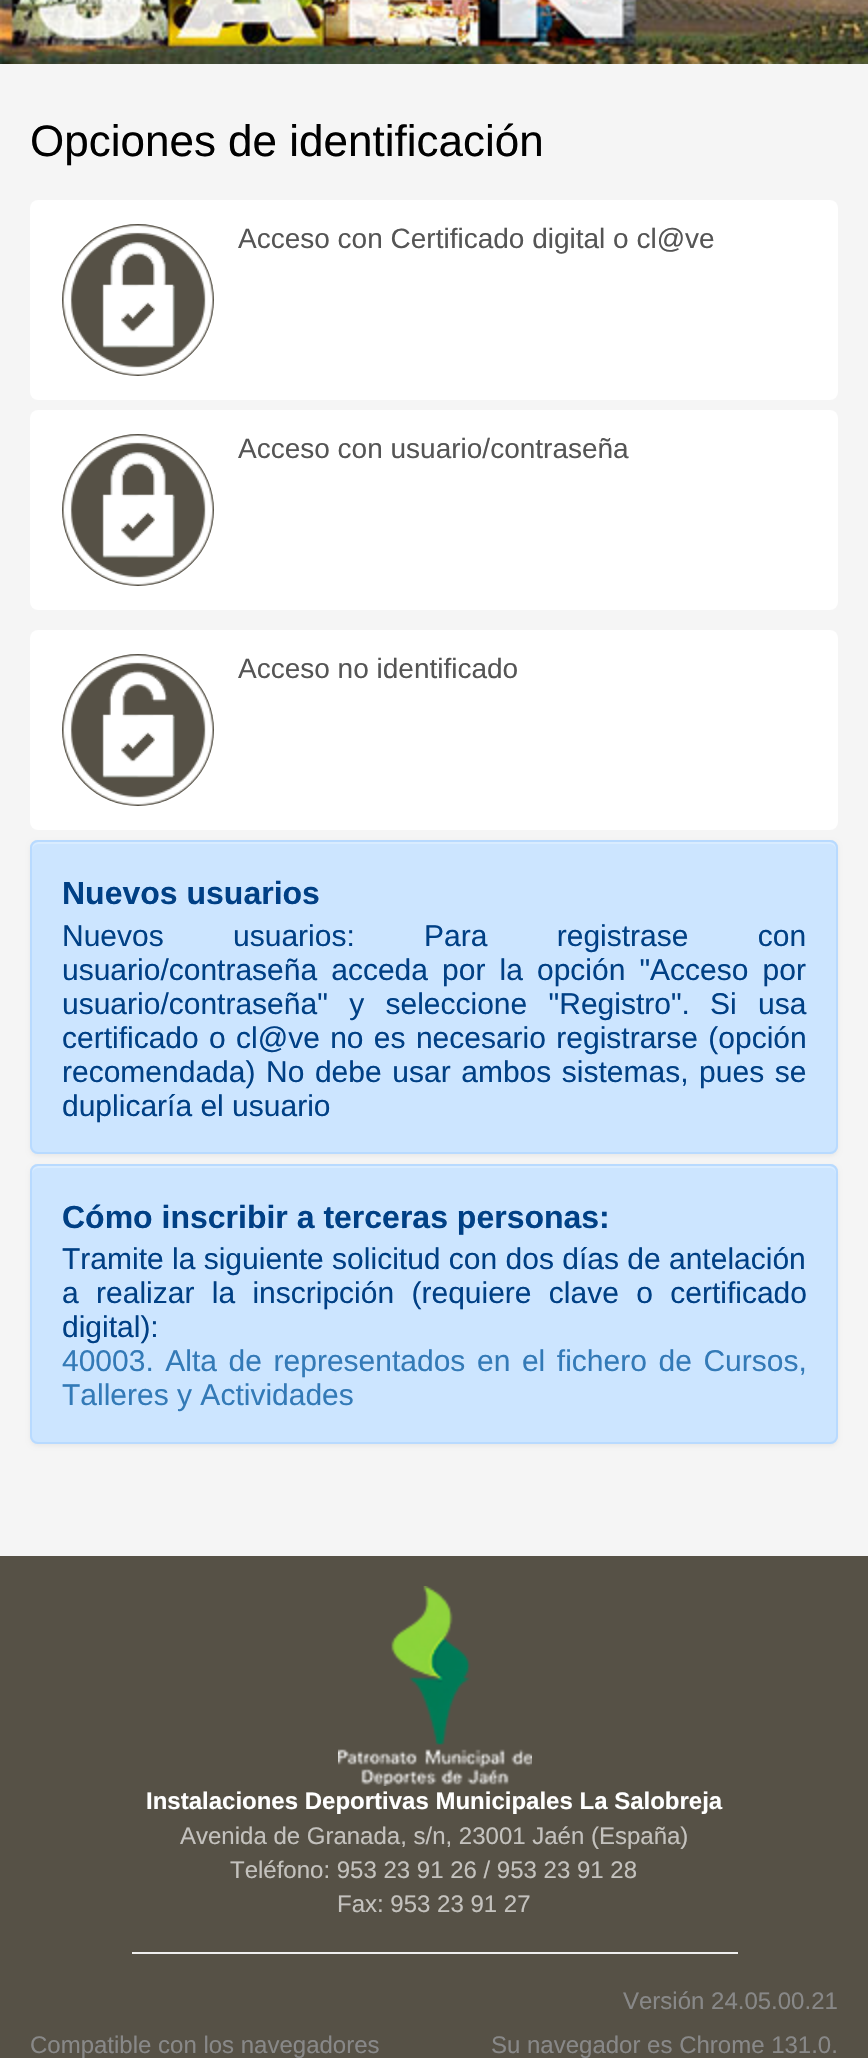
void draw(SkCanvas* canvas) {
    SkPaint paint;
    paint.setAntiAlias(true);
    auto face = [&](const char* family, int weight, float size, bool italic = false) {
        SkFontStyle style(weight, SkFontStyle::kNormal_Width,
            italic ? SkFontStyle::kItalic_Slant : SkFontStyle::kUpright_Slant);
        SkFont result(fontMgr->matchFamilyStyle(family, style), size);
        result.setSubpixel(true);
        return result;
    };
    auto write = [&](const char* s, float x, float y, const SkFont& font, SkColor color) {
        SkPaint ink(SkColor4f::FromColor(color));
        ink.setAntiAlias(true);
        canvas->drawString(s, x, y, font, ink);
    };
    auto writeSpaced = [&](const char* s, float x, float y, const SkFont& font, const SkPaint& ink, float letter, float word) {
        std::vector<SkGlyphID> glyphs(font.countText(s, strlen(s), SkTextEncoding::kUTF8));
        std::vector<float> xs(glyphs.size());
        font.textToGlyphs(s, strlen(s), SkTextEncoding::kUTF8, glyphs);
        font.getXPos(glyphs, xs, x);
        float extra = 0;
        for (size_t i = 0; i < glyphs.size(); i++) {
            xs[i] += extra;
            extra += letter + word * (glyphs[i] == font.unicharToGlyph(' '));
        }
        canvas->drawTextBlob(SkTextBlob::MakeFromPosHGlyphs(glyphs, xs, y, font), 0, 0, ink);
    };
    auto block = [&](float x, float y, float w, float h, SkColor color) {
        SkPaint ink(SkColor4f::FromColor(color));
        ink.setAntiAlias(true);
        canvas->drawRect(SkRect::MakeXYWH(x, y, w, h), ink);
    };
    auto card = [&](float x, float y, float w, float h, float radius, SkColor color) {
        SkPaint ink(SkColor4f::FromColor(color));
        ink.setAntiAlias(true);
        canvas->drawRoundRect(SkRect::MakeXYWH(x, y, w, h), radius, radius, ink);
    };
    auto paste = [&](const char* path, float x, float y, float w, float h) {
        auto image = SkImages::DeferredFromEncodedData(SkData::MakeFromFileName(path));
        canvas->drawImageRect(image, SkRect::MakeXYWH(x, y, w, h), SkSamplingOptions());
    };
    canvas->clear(SkColorSetRGB(86, 81, 70));
    block(0, 64, 868, 1492, SkColorSetRGB(245, 245, 245));
    paste("pic1.png", 0, 0, 868, 64);
    auto kFont1 = face("Liberation Sans", 400, 44);
    write("Opciones de identificación", 30, 156, kFont1, SK_ColorBLACK);
    card(30, 200, 808, 200, 8, SK_ColorWHITE);
    paint.setColor(SkColorSetRGB(86, 81, 70));
    canvas->drawCircle(138, 300, 76, paint);
    paste("pic2.png", 63, 225, 150, 150);
    auto kFont2 = face("Liberation Sans", 400, 28);
    write("Acceso con Certificado digital o cl@ve", 238, 248, kFont2, SkColorSetRGB(85, 85, 85));
    card(30, 410, 808, 200, 8, SK_ColorWHITE);
    canvas->drawCircle(138, 510, 76, paint);
    paste("pic3.png", 63, 435, 150, 150);
    write("Acceso con usuario/contraseña", 238, 458, kFont2, SkColorSetRGB(85, 85, 85));
    card(30, 630, 808, 200, 8, SK_ColorWHITE);
    canvas->drawCircle(138, 730, 76, paint);
    paste("pic4.png", 63, 655, 150, 150);
    write("Acceso no identificado", 238, 678, kFont2, SkColorSetRGB(85, 85, 85));
    paint.setColor(SkColorSetARGB(13, 0, 0, 0));
    paint.setMaskFilter(SkMaskFilter::MakeBlur(kNormal_SkBlurStyle, 2));
    canvas->drawRoundRect(SkRect::MakeXYWH(30, 842, 808, 314), 8, 8, paint);
    paint.setMaskFilter(nullptr);
    card(30, 840, 808, 314, 8, SkColorSetRGB(204, 229, 255));
    paint.setColor(SkColorSetRGB(217, 236, 255));
    canvas->drawPath(SkPathBuilder().moveTo(38, 844).lineTo(830, 844).cubicTo(833, 844, 836, 847, 836, 850).lineTo(836, 848).cubicTo(836, 845, 833, 842, 830, 842).lineTo(38, 842).cubicTo(35, 842, 32, 845, 32, 848).lineTo(32, 850).cubicTo(32, 847, 35, 844, 38, 844).close().detach(), paint);
    paint.setStyle(SkPaint::kStroke_Style);
    paint.setStrokeWidth(2);
    paint.setColor(SkColorSetRGB(184, 218, 255));
    canvas->drawRoundRect(SkRect::MakeXYWH(31, 841, 806, 312), 7, 7, paint);
    auto kFont3 = face("Liberation Sans", 700, 32);
    write("Nuevos usuarios", 62, 904, kFont3, SkColorSetRGB(0, 64, 133));
    auto kFont4 = face("Liberation Sans", 400, 30);
    paint.setStyle(SkPaint::kFill_Style);
    paint.setColor(SkColorSetRGB(0, 64, 133));
    writeSpaced("Nuevos usuarios:", 62, 946, kFont4, paint, 0, 61);
    writeSpaced("Para registrase con", 424, 946, kFont4, paint, 0, 61);
    writeSpaced("usuario/contraseña acceda por la opción \"Acceso por", 62, 980, kFont4, paint, 0, 5.75f);
    writeSpaced("usuario/contraseña\" y seleccione \"Registro\".", 62, 1014, kFont4, paint, 0, 13);
    writeSpaced("Si usa", 710, 1014, kFont4, paint, 0, 13);
    write("certificado", 62, 1048, kFont4, SkColorSetRGB(0, 64, 133));
    writeSpaced("o cl@ve no es necesario registrarse (opción", 209, 1048, kFont4, paint, 0, 2);
    write("recomendada)", 62, 1082, kFont4, SkColorSetRGB(0, 64, 133));
    writeSpaced("No debe usar ambos sistemas, pues se", 266, 1082, kFont4, paint, 0, 2.25f);
    write("duplicaría el usuario", 62, 1116, kFont4, SkColorSetRGB(0, 64, 133));
    paint.setColor(SkColorSetARGB(13, 0, 0, 0));
    paint.setMaskFilter(SkMaskFilter::MakeBlur(kNormal_SkBlurStyle, 2));
    canvas->drawRoundRect(SkRect::MakeXYWH(30, 1166, 808, 280), 8, 8, paint);
    paint.setMaskFilter(nullptr);
    card(30, 1164, 808, 280, 8, SkColorSetRGB(204, 229, 255));
    paint.setColor(SkColorSetRGB(217, 236, 255));
    canvas->drawPath(SkPathBuilder().moveTo(38, 1168).lineTo(830, 1168).cubicTo(833, 1168, 836, 1171, 836, 1174).lineTo(836, 1172).cubicTo(836, 1169, 833, 1166, 830, 1166).lineTo(38, 1166).cubicTo(35, 1166, 32, 1169, 32, 1172).lineTo(32, 1174).cubicTo(32, 1171, 35, 1168, 38, 1168).close().detach(), paint);
    paint.setStyle(SkPaint::kStroke_Style);
    paint.setColor(SkColorSetRGB(184, 218, 255));
    canvas->drawRoundRect(SkRect::MakeXYWH(31, 1165, 806, 278), 7, 7, paint);
    write("Cómo inscribir a terceras personas:", 62, 1228, kFont3, SkColorSetRGB(0, 64, 133));
    write("Tramite la siguiente solicitud con dos días de antelación", 62, 1269, kFont4, SkColorSetRGB(0, 64, 133));
    paint.setStyle(SkPaint::kFill_Style);
    paint.setColor(SkColorSetRGB(0, 64, 133));
    writeSpaced("a realizar la inscripción (requiere clave o certificado", 62, 1303, kFont4, paint, 0, 9);
    write("digital):", 62, 1337, kFont4, SkColorSetRGB(0, 64, 133));
    paint.setColor(SkColorSetRGB(51, 122, 183));
    writeSpaced("40003. Alta de representados en el fichero de Cursos,", 62, 1371, kFont4, paint, 0, 3.25f);
    write("Talleres y Actividades", 62, 1405, kFont4, SkColorSetRGB(51, 122, 183));
    paste("pic5.png", 338, 1586, 194, 200);
    auto kFont5 = face("Liberation Sans", 700, 24);
    write("Instalaciones Deportivas Municipales La Salobreja", 146, 1809, kFont5, SK_ColorWHITE);
    auto kFont6 = face("Liberation Sans", 400, 24);
    write("Avenida de Granada, s/n, 23001 Jaén (España)", 180, 1844, kFont6, SkColorSetRGB(196, 194, 190));
    write("Teléfono: 953 23 91 26 / 953 23 91 28", 230, 1878, kFont6, SkColorSetRGB(196, 194, 190));
    write("Fax: 953 23 91 27", 337, 1912, kFont6, SkColorSetRGB(196, 194, 190));
    block(132, 1952, 606, 2, SkColorSetRGB(238, 238, 238));
    write("Versión 24.05.00.21", 623, 2009, kFont6, SkColorSetRGB(136, 136, 136));
    write("Compatible con los navegadores", 30, 2053, kFont6, SkColorSetRGB(136, 136, 136));
    write("Su navegador es Chrome 131.0.", 491, 2053, kFont6, SkColorSetRGB(136, 136, 136));
}
